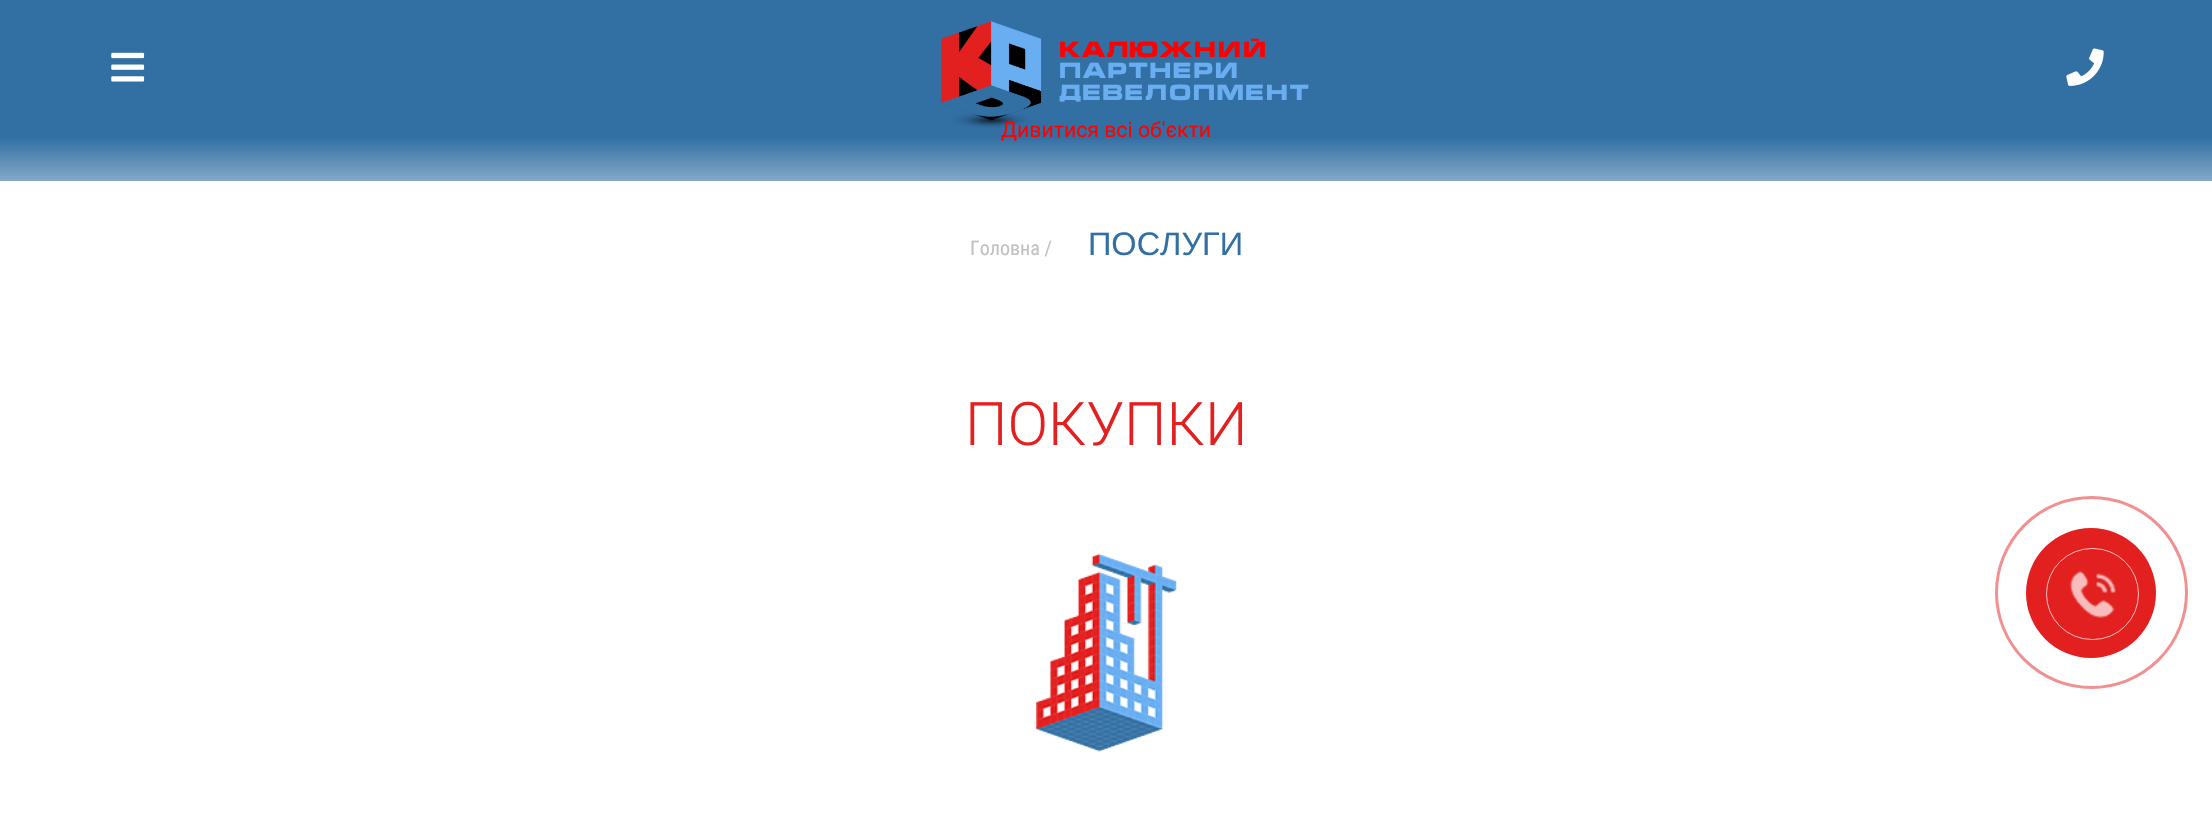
void draw(SkCanvas* canvas) {
    SkPaint paint;
    paint.setAntiAlias(true);
    auto face = [&](const char* family, int weight, float size, bool italic = false) {
        SkFontStyle style(weight, SkFontStyle::kNormal_Width,
            italic ? SkFontStyle::kItalic_Slant : SkFontStyle::kUpright_Slant);
        SkFont result(fontMgr->matchFamilyStyle(family, style), size);
        result.setSubpixel(true);
        return result;
    };
    auto write = [&](const char* s, float x, float y, const SkFont& font, SkColor color) {
        SkPaint ink(SkColor4f::FromColor(color));
        ink.setAntiAlias(true);
        canvas->drawString(s, x, y, font, ink);
    };
    auto block = [&](float x, float y, float w, float h, SkColor color) {
        SkPaint ink(SkColor4f::FromColor(color));
        ink.setAntiAlias(true);
        canvas->drawRect(SkRect::MakeXYWH(x, y, w, h), ink);
    };
    auto paste = [&](const char* path, float x, float y, float w, float h) {
        auto image = SkImages::DeferredFromEncodedData(SkData::MakeFromFileName(path));
        canvas->drawImageRect(image, SkRect::MakeXYWH(x, y, w, h), SkSamplingOptions());
    };
    canvas->clear(SK_ColorWHITE);
    block(0, 0, 2212, 139, SkColorSetRGB(50, 111, 163));
    paste("pic1.png", 111, 52, 34, 30);
    paste("pic2.png", 941, 21, 101, 107);
    auto kFont1 = face("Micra", 700, 21.25f);
    write("Калюжний", 1058, 57, kFont1, SkColorSetRGB(255, 0, 0));
    write("Партнери", 1058, 78, kFont1, SkColorSetRGB(106, 174, 242));
    write("Девелопмент", 1058, 100, kFont1, SkColorSetRGB(106, 174, 242));
    paste("pic3.png", 2066, 48, 38, 38);
    {
        const SkColor colors[] = {SkColorSetRGB(50, 111, 163), SkColorSetARGB(153, 50, 111, 163)};
        const float stops[] = {0, 1};
        const SkPoint ends[] = {{1106, 137}, {1106, 181}};
        paint.setShader(SkGradientShader::MakeLinear(ends, colors, stops, 2, SkTileMode::kClamp));
        paint.setAlpha(255);
    }
    canvas->drawRect(SkRect::MakeXYWH(0, 139, 2212, 42), paint);
    auto kFont2 = face("Roboto", 400, 21.25f);
    write("Дивитися всі об'єкти", 1001, 137, kFont2, SkColorSetRGB(255, 0, 0));
    auto kFont3 = face("Roboto Condensed", 400, 20);
    write("Головна /", 970, 255, kFont3, SkColorSetRGB(193, 193, 193));
    auto kFont4 = face("Liberation Sans", 400, 32.5f);
    write("ПОСЛУГИ", 1088, 255, kFont4, SkColorSetRGB(50, 111, 163));
    auto kFont5 = face("Roboto", 300, 60);
    write("ПОКУПКИ", 965, 445, kFont5, SkColorSetRGB(227, 32, 32));
    paste("pic4.png", 1036, 553, 141, 199);
    paint.setStyle(SkPaint::kStroke_Style);
    paint.setStrokeWidth(3);
    paint.setShader(nullptr);
    paint.setColor(SkColorSetRGB(241, 144, 144));
    canvas->drawCircle(2091.5f, 592.5f, 95, paint);
    paint.setStyle(SkPaint::kFill_Style);
    paint.setColor(SkColorSetRGB(227, 32, 32));
    canvas->drawCircle(2091, 593, 65, paint);
    paint.setStyle(SkPaint::kStroke_Style);
    paint.setStrokeWidth(1);
    paint.setColor(SkColorSetRGB(247, 188, 188));
    canvas->drawRoundRect(SkRect::MakeXYWH(2046.5f, 548.5f, 92, 91), 45.5f, 45.5f, paint);
    paste("pic5.png", 2069, 570, 47, 48);
}
